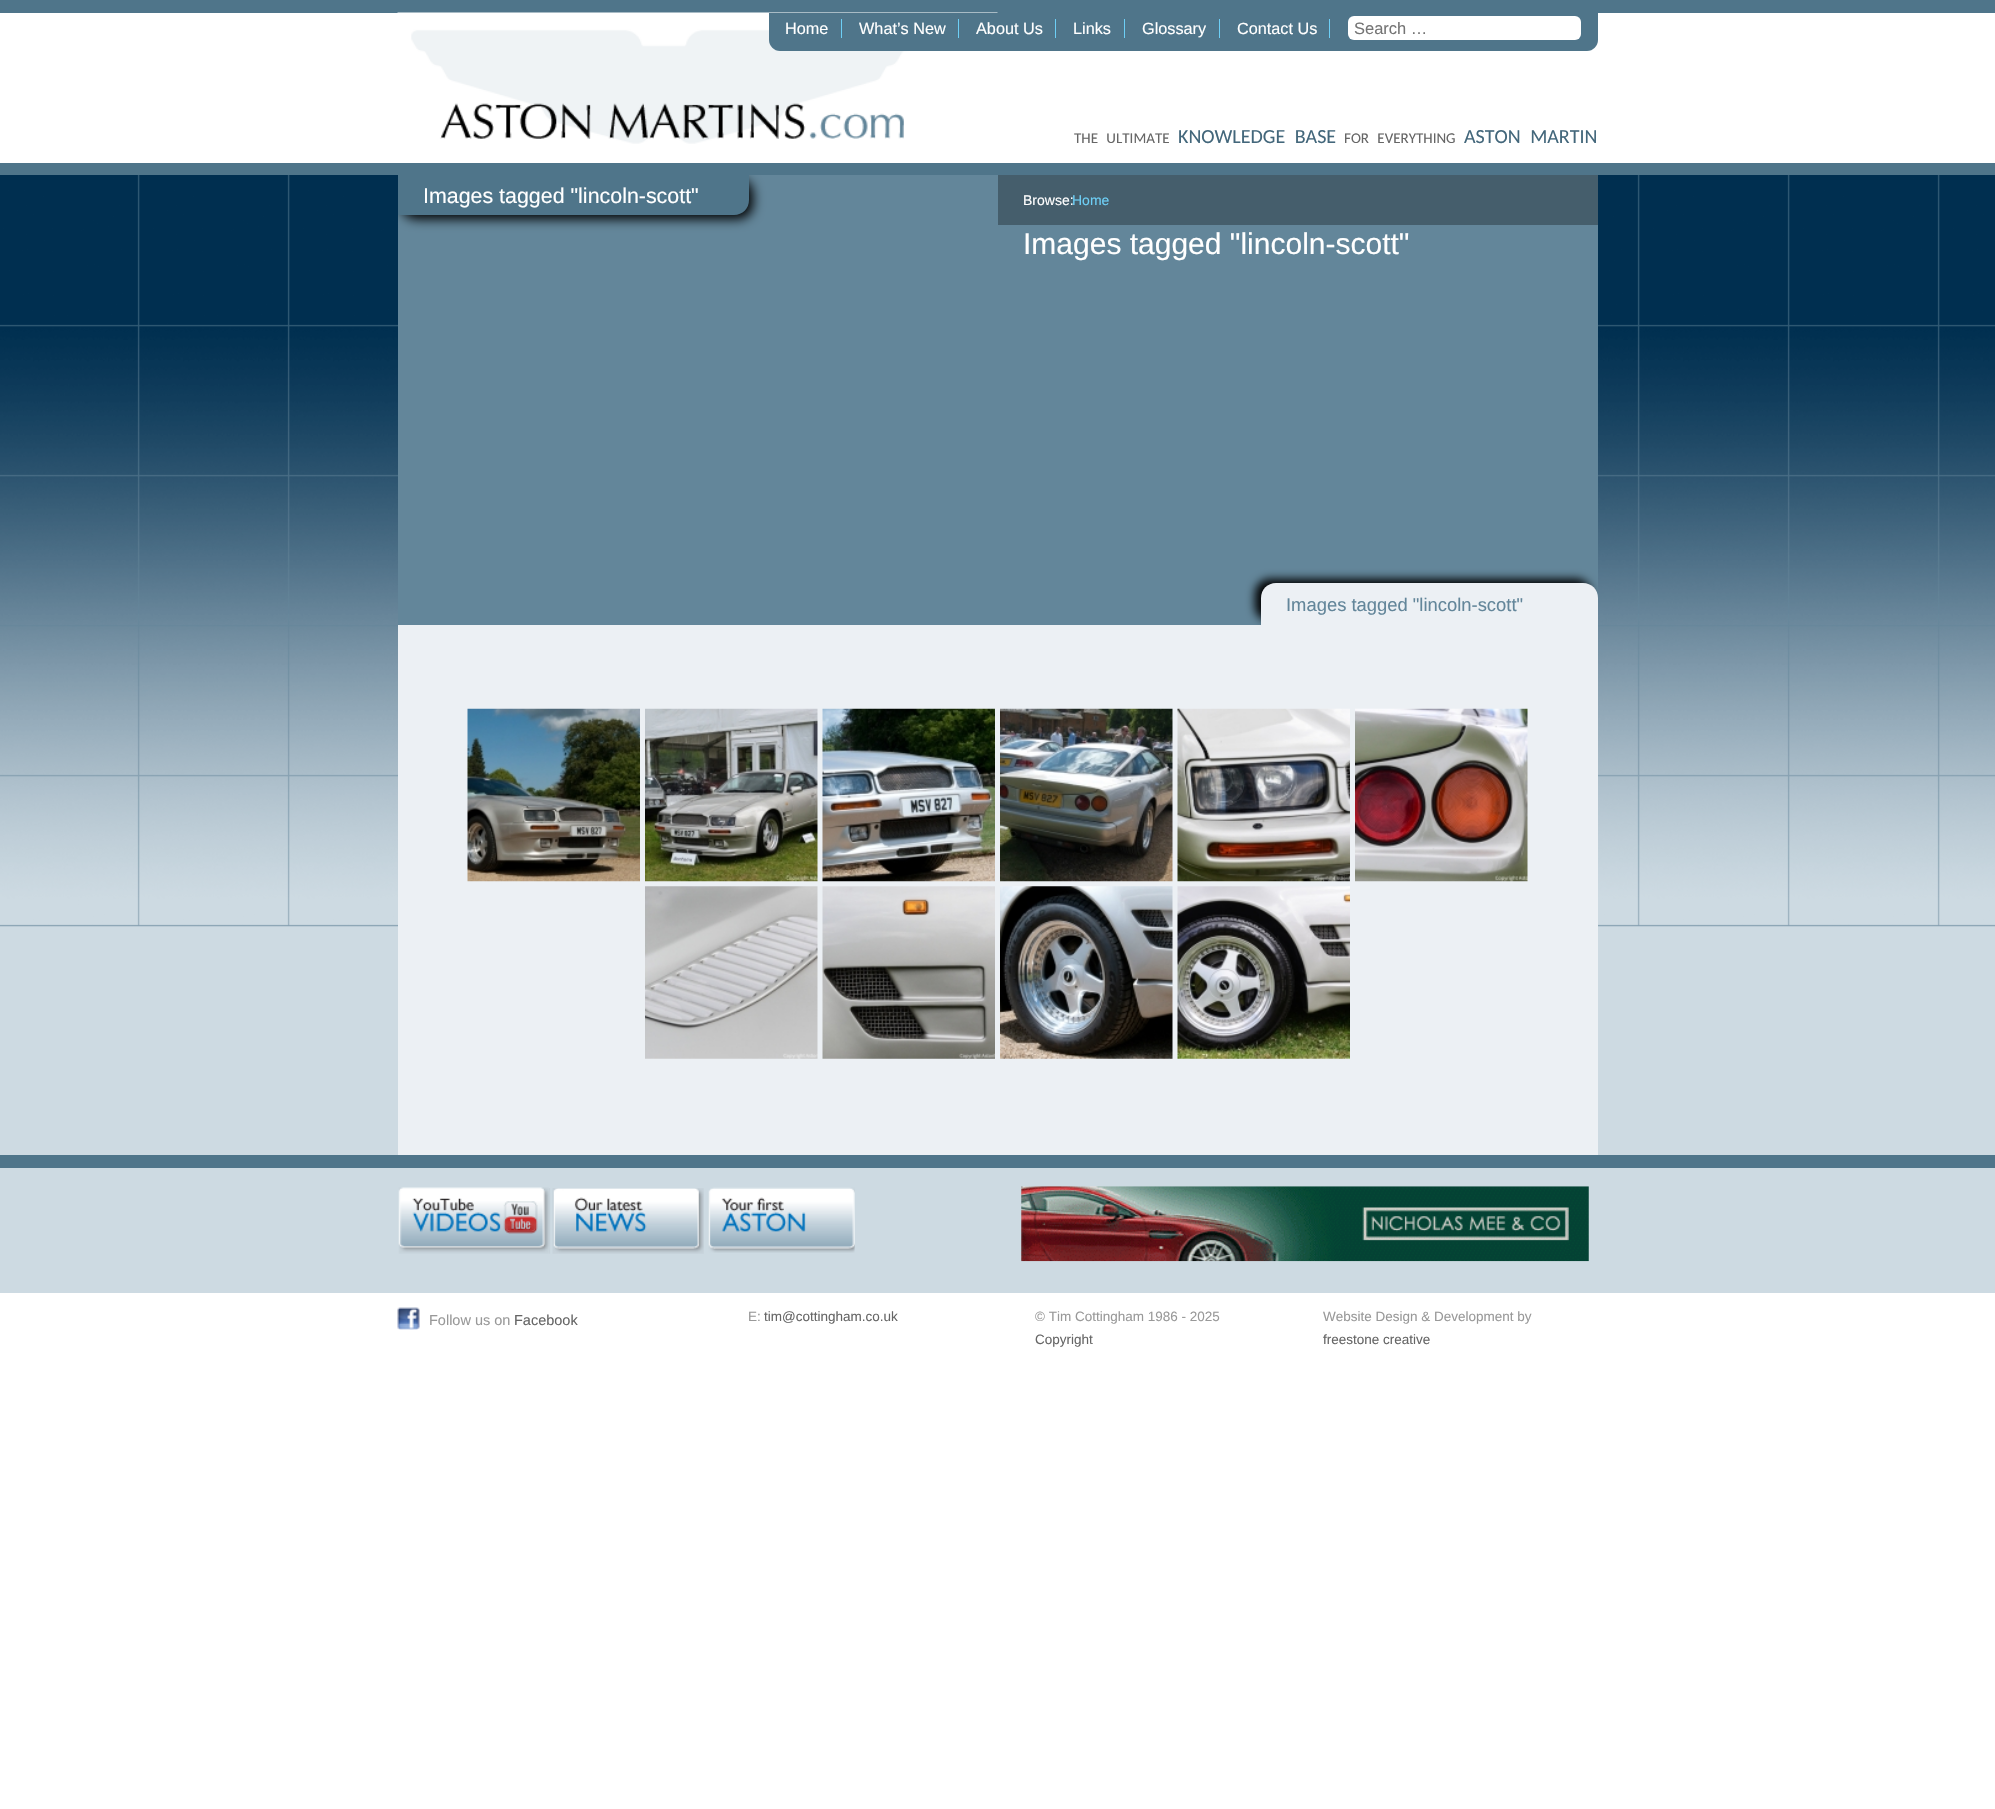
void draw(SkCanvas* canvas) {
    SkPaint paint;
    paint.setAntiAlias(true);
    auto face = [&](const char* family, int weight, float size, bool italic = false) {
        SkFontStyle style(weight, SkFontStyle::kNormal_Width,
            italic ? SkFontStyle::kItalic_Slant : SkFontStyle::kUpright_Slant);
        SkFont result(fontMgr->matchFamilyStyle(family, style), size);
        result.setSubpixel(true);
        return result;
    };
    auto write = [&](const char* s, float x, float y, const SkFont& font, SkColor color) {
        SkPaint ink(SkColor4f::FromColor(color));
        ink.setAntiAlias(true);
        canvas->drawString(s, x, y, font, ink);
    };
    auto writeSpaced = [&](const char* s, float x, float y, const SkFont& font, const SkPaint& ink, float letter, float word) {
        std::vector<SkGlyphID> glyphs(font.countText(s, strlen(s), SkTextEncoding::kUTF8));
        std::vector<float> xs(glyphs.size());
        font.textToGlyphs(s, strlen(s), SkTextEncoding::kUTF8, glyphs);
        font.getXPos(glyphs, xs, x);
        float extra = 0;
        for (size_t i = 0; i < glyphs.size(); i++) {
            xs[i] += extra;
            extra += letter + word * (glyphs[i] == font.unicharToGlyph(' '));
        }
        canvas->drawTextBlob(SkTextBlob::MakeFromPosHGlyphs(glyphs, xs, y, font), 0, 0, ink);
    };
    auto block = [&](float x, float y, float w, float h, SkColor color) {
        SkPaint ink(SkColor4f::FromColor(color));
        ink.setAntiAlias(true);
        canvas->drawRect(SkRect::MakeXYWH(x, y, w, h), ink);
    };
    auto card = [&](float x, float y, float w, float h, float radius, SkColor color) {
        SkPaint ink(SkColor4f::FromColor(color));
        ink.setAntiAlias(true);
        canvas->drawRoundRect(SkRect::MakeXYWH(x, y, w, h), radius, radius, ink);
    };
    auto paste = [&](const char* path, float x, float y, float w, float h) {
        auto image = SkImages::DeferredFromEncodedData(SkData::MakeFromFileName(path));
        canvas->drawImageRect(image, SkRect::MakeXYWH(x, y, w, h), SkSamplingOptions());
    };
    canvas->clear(SK_ColorWHITE);
    block(0, 0, 1995, 13, SkColorSetRGB(79, 117, 138));
    paste("pic1.png", 397, 12, 601, 132);
    paint.setColor(SkColorSetRGB(79, 117, 138));
    canvas->drawPath(SkPathBuilder().moveTo(769, 13).lineTo(1598, 13).lineTo(1598, 40).cubicTo(1598, 46, 1593, 51, 1587, 51).lineTo(780, 51).cubicTo(774, 51, 769, 46, 769, 40).close().detach(), paint);
    auto kFont1 = face("Liberation Sans", 400, 16.25f);
    write("Home", 785, 34, kFont1, SK_ColorWHITE);
    block(841, 19, 1, 19, SkColorSetRGB(109, 207, 246));
    write("What’s New", 859, 34, kFont1, SK_ColorWHITE);
    block(958, 19, 1, 19, SkColorSetRGB(109, 207, 246));
    write("About Us", 976, 34, kFont1, SK_ColorWHITE);
    block(1055, 19, 1, 19, SkColorSetRGB(109, 207, 246));
    write("Links", 1073, 34, kFont1, SK_ColorWHITE);
    block(1124, 19, 1, 19, SkColorSetRGB(109, 207, 246));
    write("Glossary", 1142, 34, kFont1, SK_ColorWHITE);
    block(1219, 19, 1, 19, SkColorSetRGB(109, 207, 246));
    write("Contact Us", 1237, 34, kFont1, SK_ColorWHITE);
    block(1329, 19, 1, 19, SkColorSetRGB(109, 207, 246));
    card(1348, 16, 233, 24, 6, SK_ColorWHITE);
    auto kFont2 = face("Liberation Sans", 400, 16.5f);
    write("Search …", 1354, 34, kFont2, SkColorSetRGB(117, 117, 117));
    auto kFont3 = face("Carlito", 400, 15);
    paint.setColor(SkColorSetRGB(102, 102, 102));
    writeSpaced("THE ULTIMATE", 1074, 143, kFont3, paint, 0, 5);
    auto kFont4 = face("Carlito", 400, 20);
    paint.setColor(SkColorSetRGB(67, 103, 123));
    writeSpaced("KNOWLEDGE BASE", 1178, 143, kFont4, paint, 0, 5);
    paint.setColor(SkColorSetRGB(102, 102, 102));
    writeSpaced("FOR EVERYTHING", 1344, 143, kFont3, paint, 0, 5);
    paint.setColor(SkColorSetRGB(67, 103, 123));
    writeSpaced("ASTON MARTIN", 1464, 143, kFont4, paint, 0, 5);
    block(0, 926, 1995, 229, SkColorSetRGB(205, 218, 226));
    paste("pic2.png", 0, 175, 1995, 752);
    block(0, 163, 1995, 12, SkColorSetRGB(79, 117, 138));
    block(0, 1155, 1995, 13, SkColorSetRGB(79, 117, 138));
    block(398, 175, 1200, 450, SkColorSetRGB(99, 134, 154));
    canvas->save();
    canvas->clipRect(SkRect::MakeXYWH(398, 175, 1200, 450));
    paint.setColor(SK_ColorBLACK);
    paint.setMaskFilter(SkMaskFilter::MakeBlur(kNormal_SkBlurStyle, 6));
    canvas->drawRoundRect(SkRect::MakeXYWH(401, 179, 352, 40), 15, 15, paint);
    paint.setMaskFilter(nullptr);
    canvas->restore();
    paint.setColor(SkColorSetRGB(79, 117, 138));
    canvas->drawPath(SkPathBuilder().moveTo(398, 175).lineTo(749, 175).lineTo(749, 200).cubicTo(749, 208.5f, 742.5f, 215, 734, 215).lineTo(398, 215).close().detach(), paint);
    auto kFont5 = face("Liberation Sans", 400, 21.4f);
    write("Images tagged \"lincoln-scott\"", 423, 203, kFont5, SK_ColorWHITE);
    block(998, 175, 600, 50, SkColorSetRGB(69, 94, 108));
    auto kFont6 = face("Liberation Sans", 400, 14);
    write("Browse:", 1023, 205, kFont6, SK_ColorWHITE);
    write("Home", 1072, 205, kFont6, SkColorSetRGB(109, 207, 246));
    auto kFont7 = face("Liberation Sans", 400, 30);
    write("Images tagged \"lincoln-scott\"", 1023, 254, kFont7, SK_ColorWHITE);
    canvas->save();
    canvas->clipRect(SkRect::MakeXYWH(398, 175, 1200, 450));
    paint.setColor(SK_ColorBLACK);
    paint.setMaskFilter(SkMaskFilter::MakeBlur(kNormal_SkBlurStyle, 5));
    canvas->drawRoundRect(SkRect::MakeXYWH(1255, 579, 336, 42), 15, 15, paint);
    paint.setMaskFilter(nullptr);
    canvas->restore();
    paint.setColor(SkColorSetRGB(236, 240, 244));
    canvas->drawPath(SkPathBuilder().moveTo(1276, 583).lineTo(1583, 583).cubicTo(1591.5f, 583, 1598, 589.5f, 1598, 598).lineTo(1598, 625).lineTo(1261, 625).lineTo(1261, 598).cubicTo(1261, 589.5f, 1267.5f, 583, 1276, 583).close().detach(), paint);
    auto kFont8 = face("Liberation Sans", 400, 18.4f);
    write("Images tagged \"lincoln-scott\"", 1286, 611, kFont8, SkColorSetRGB(99, 134, 154));
    block(398, 625, 1200, 530, SkColorSetRGB(236, 240, 244));
    paste("pic3.png", 467, 708, 173, 174);
    paste("pic4.png", 645, 708, 173, 174);
    paste("pic5.png", 822, 708, 173, 174);
    paste("pic6.png", 1000, 708, 173, 174);
    paste("pic7.png", 1177, 708, 173, 174);
    paste("pic8.png", 1355, 708, 173, 174);
    paste("pic9.png", 645, 886, 173, 173);
    paste("pic10.png", 822, 886, 173, 173);
    paste("pic11.png", 1000, 886, 173, 173);
    paste("pic12.png", 1177, 886, 173, 173);
    block(0, 1168, 1995, 125, SkColorSetRGB(205, 218, 226));
    paste("pic13.png", 398, 1187, 151, 67);
    paste("pic14.png", 549, 1188, 155, 66);
    paste("pic15.png", 708, 1187, 147, 66);
    paste("pic16.png", 1021, 1186, 568, 76);
    paste("pic17.png", 397, 1307, 23, 23);
    auto kFont9 = face("Liberation Sans", 400, 14.5f);
    write("Follow us on", 429, 1325, kFont9, SkColorSetRGB(153, 153, 153));
    write("Facebook", 514, 1325, kFont9, SkColorSetRGB(102, 102, 102));
    auto kFont10 = face("Liberation Sans", 400, 13.5f);
    write("E:", 748, 1321, kFont10, SkColorSetRGB(153, 153, 153));
    write("tim@cottingham.co.uk", 764, 1321, kFont10, SkColorSetRGB(102, 102, 102));
    write("© Tim Cottingham 1986 - 2025", 1035, 1321, kFont10, SkColorSetRGB(153, 153, 153));
    write("Copyright", 1035, 1344, kFont10, SkColorSetRGB(102, 102, 102));
    write("Website Design & Development by", 1323, 1321, kFont10, SkColorSetRGB(153, 153, 153));
    write("freestone creative", 1323, 1344, kFont10, SkColorSetRGB(102, 102, 102));
}
